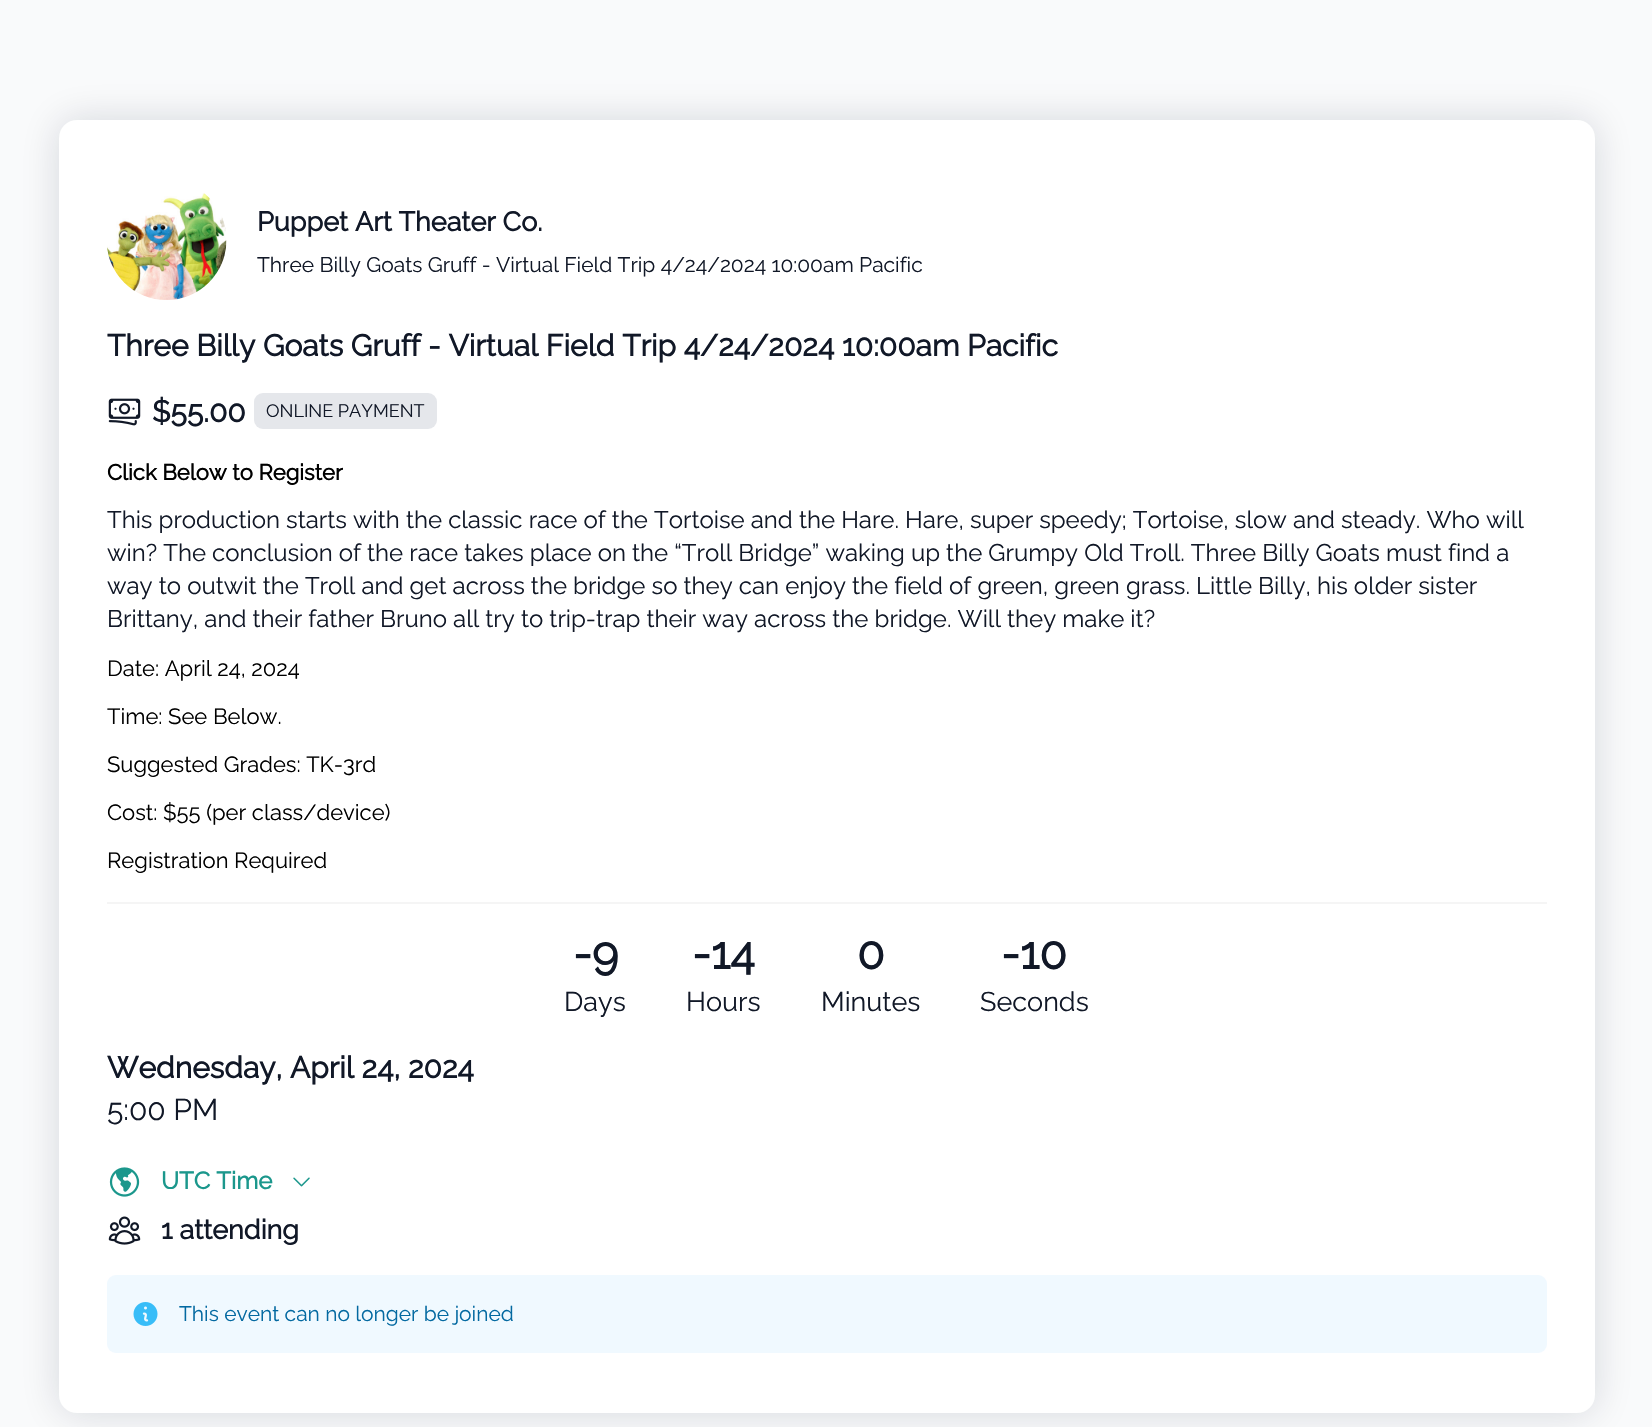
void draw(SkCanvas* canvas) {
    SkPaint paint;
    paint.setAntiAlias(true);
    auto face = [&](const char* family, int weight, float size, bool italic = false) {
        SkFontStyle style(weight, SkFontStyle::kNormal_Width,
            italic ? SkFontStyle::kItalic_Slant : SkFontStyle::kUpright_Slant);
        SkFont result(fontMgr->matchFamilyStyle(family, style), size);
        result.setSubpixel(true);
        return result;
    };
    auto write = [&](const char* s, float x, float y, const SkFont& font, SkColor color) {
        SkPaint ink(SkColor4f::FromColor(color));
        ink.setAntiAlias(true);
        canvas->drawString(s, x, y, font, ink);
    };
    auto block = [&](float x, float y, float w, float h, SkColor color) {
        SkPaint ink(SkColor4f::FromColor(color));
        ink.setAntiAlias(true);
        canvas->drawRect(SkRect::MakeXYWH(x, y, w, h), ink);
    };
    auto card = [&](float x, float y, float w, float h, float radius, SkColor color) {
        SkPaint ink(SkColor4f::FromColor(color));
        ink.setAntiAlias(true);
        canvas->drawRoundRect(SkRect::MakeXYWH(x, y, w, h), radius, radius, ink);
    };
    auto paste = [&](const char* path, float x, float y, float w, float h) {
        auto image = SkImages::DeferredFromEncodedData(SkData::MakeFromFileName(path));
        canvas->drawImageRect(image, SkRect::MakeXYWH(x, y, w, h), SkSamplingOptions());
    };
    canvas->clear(SkColorSetRGB(249, 250, 251));
    paint.setColor(SkColorSetARGB(38, 15, 17, 45));
    paint.setMaskFilter(SkMaskFilter::MakeBlur(kNormal_SkBlurStyle, 19.5f));
    canvas->drawRoundRect(SkRect::MakeXYWH(59, 120, 1536, 1293), 18, 18, paint);
    paint.setMaskFilter(nullptr);
    card(59, 120, 1536, 1293, 18, SK_ColorWHITE);
    paste("pic1.png", 107, 193, 120, 107);
    auto kFont1 = face("Raleway", 700, 27);
    write("Puppet Art Theater Co.", 257, 231, kFont1, SkColorSetRGB(17, 24, 39));
    auto kFont2 = face("Raleway", 100, 21);
    write("Three Billy Goats Gruff - Virtual Field Trip 4/24/2024 10:00am Pacific", 257, 272, kFont2, SkColorSetRGB(17, 24, 39));
    auto kFont3 = face("Raleway", 700, 30);
    write("Three Billy Goats Gruff - Virtual Field Trip 4/24/2024 10:00am Pacific", 107, 356, kFont3, SkColorSetRGB(17, 24, 39));
    paste("pic2.png", 108, 398, 33, 28);
    write("$55.00", 152, 422, kFont3, SkColorSetRGB(17, 24, 39));
    card(254, 393, 183, 36, 9, SkColorSetRGB(229, 231, 235));
    auto kFont4 = face("Raleway", 100, 18);
    write("ONLINE PAYMENT", 266, 417, kFont4, SkColorSetRGB(17, 24, 39));
    auto kFont5 = face("Raleway", 700, 22);
    write("Click Below to Register", 107, 480, kFont5, SK_ColorBLACK);
    auto kFont6 = face("Raleway", 100, 24);
    write("This production starts with the classic race of the Tortoise and the Hare. Hare, super speedy; Tortoise, slow and steady. Who will", 107, 528, kFont6, SkColorSetRGB(17, 24, 39));
    write("win? The conclusion of the race takes place on the “Troll Bridge” waking up the Grumpy Old Troll. Three Billy Goats must find a", 107, 561, kFont6, SkColorSetRGB(17, 24, 39));
    write("way to outwit the Troll and get across the bridge so they can enjoy the field of green, green grass. Little Billy, his older sister", 107, 594, kFont6, SkColorSetRGB(17, 24, 39));
    write("Brittany, and their father Bruno all try to trip-trap their way across the bridge. Will they make it?", 107, 627, kFont6, SkColorSetRGB(17, 24, 39));
    auto kFont7 = face("Raleway", 100, 22);
    write("Date: April 24, 2024", 107, 676, kFont7, SK_ColorBLACK);
    write("Time: See Below.", 107, 724, kFont7, SK_ColorBLACK);
    write("Suggested Grades: TK-3rd", 107, 772, kFont7, SK_ColorBLACK);
    write("Cost: $55 (per class/device)", 107, 820, kFont7, SK_ColorBLACK);
    write("Registration Required", 107, 868, kFont7, SK_ColorBLACK);
    block(107, 902, 1440, 2, SkColorSetRGB(245, 245, 245));
    auto kFont8 = face("Raleway", 700, 45);
    write("-9", 573, 969, kFont8, SkColorSetRGB(17, 24, 39));
    auto kFont9 = face("Raleway", 100, 27);
    write("Days", 564, 1011, kFont9, SkColorSetRGB(17, 24, 39));
    write("-14", 692, 969, kFont8, SkColorSetRGB(17, 24, 39));
    write("Hours", 686, 1011, kFont9, SkColorSetRGB(17, 24, 39));
    write("0", 857, 969, kFont8, SkColorSetRGB(17, 24, 39));
    write("Minutes", 821, 1011, kFont9, SkColorSetRGB(17, 24, 39));
    write("-10", 1001, 969, kFont8, SkColorSetRGB(17, 24, 39));
    write("Seconds", 980, 1011, kFont9, SkColorSetRGB(17, 24, 39));
    write("Wednesday, April 24, 2024", 107, 1078, kFont3, SkColorSetRGB(17, 24, 39));
    auto kFont10 = face("Raleway", 100, 30);
    write("5:00 PM", 107, 1120, kFont10, SkColorSetRGB(17, 24, 39));
    paste("pic3.png", 109, 1167, 31, 30);
    auto kFont11 = face("Raleway", 700, 24);
    write("UTC Time", 161, 1189, kFont11, SkColorSetRGB(27, 151, 140));
    paste("pic4.png", 293, 1177, 17, 10);
    paste("pic5.png", 108, 1216, 33, 29);
    write("1 attending", 161, 1239, kFont1, SkColorSetRGB(17, 24, 39));
    card(107, 1275, 1440, 78, 9, SkColorSetRGB(240, 249, 255));
    paste("pic6.png", 133, 1302, 25, 24);
    write("This event can no longer be joined", 179, 1321, kFont2, SkColorSetRGB(3, 105, 161));
}
